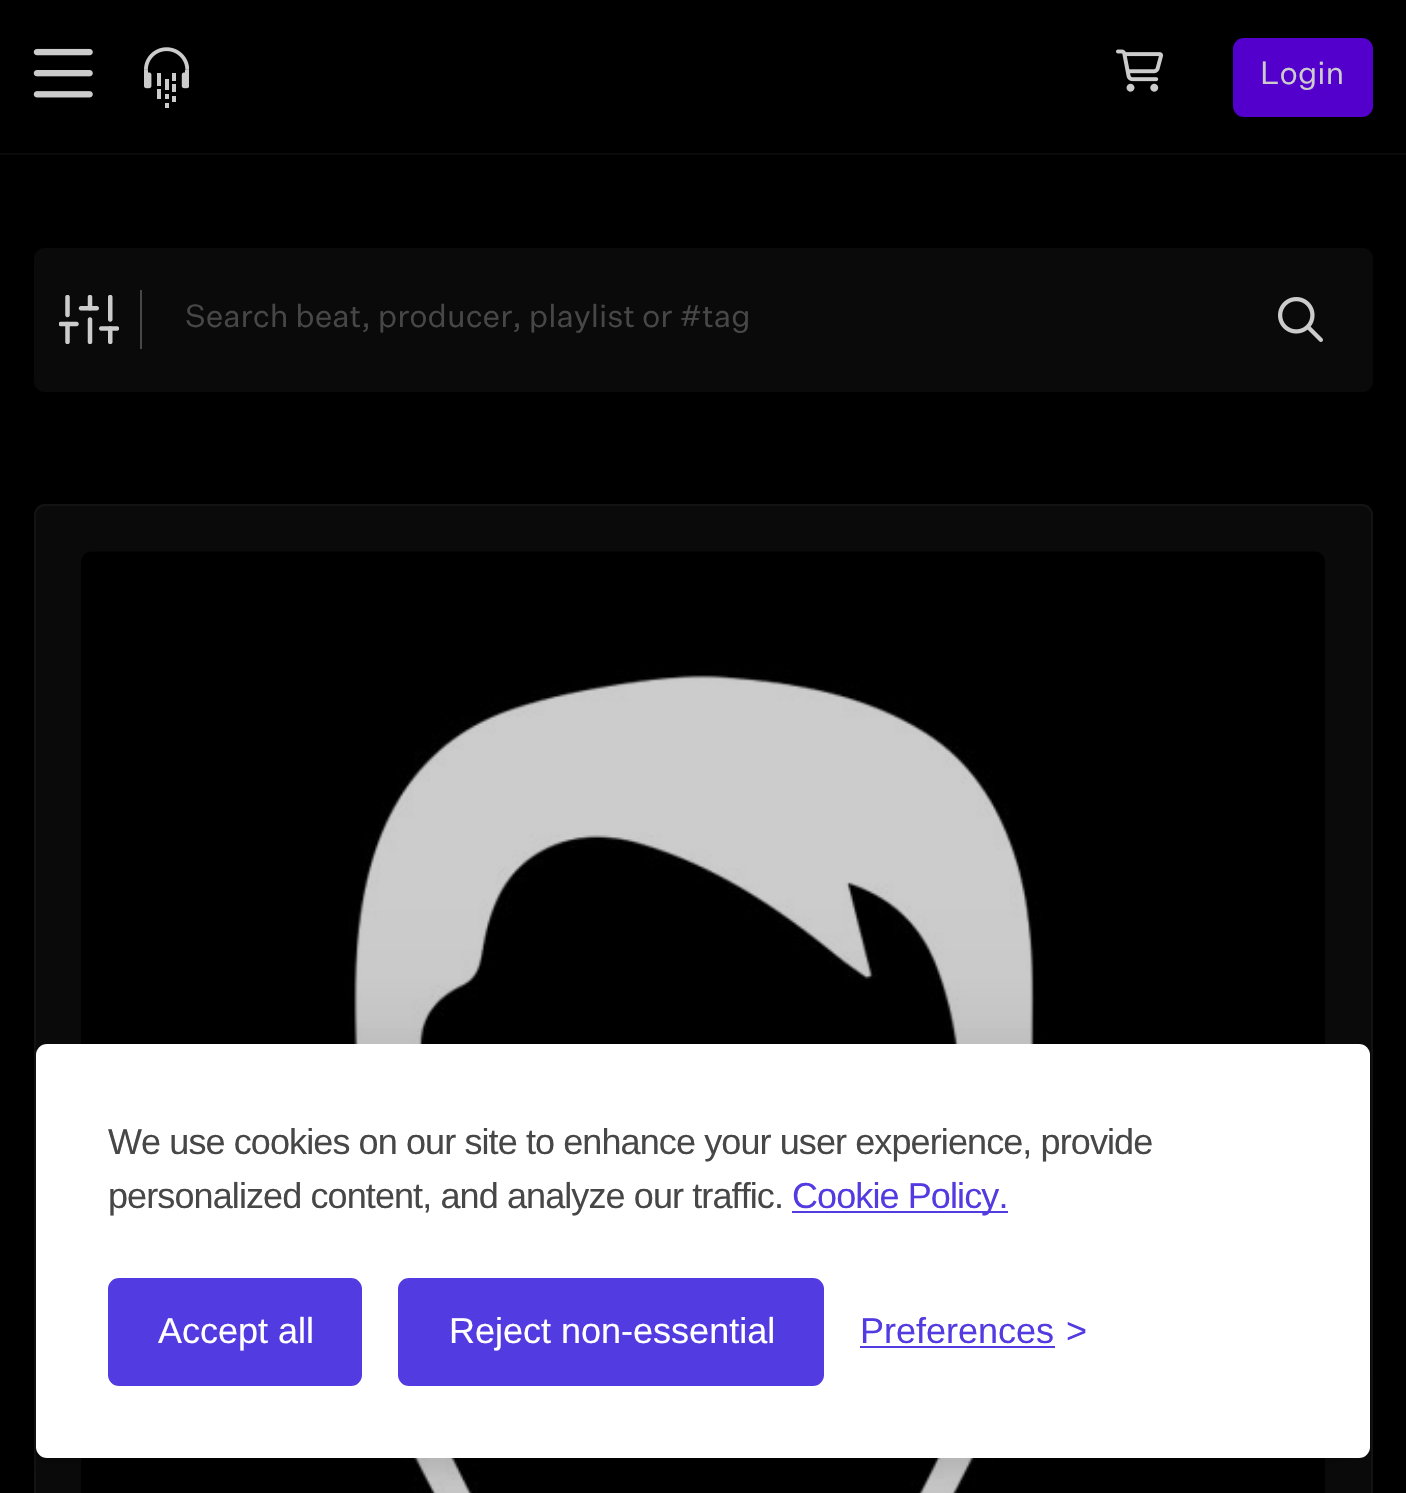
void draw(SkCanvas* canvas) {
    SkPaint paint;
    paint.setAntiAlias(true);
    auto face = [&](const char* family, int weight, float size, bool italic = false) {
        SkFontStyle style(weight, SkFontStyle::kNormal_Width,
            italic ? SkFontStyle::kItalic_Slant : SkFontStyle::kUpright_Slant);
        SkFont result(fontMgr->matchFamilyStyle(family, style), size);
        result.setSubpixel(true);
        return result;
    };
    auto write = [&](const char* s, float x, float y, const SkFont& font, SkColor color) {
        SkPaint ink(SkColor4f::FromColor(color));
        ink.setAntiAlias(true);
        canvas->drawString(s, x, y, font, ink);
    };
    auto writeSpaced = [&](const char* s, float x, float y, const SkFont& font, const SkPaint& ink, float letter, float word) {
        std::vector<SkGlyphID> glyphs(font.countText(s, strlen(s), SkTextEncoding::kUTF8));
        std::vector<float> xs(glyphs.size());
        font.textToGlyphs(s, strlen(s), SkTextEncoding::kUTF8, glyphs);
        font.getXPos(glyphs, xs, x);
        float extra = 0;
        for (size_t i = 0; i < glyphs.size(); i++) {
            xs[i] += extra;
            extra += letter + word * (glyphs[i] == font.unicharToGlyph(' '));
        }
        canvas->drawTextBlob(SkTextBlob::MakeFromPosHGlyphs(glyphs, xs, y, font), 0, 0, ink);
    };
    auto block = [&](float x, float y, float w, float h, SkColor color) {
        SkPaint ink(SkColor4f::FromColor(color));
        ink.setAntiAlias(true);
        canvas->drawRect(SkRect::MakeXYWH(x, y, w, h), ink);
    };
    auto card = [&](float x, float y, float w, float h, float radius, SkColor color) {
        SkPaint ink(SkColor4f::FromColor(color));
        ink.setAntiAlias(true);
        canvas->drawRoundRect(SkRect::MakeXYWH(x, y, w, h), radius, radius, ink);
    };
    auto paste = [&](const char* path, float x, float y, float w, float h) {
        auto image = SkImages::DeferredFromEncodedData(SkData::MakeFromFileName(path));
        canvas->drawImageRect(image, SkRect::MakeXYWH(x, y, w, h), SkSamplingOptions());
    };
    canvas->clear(SK_ColorBLACK);
    block(0, 153, 1406, 2, SkColorSetRGB(10, 10, 10));
    paste("pic1.png", 33, 48, 60, 50);
    paste("pic2.png", 144, 47, 45, 61);
    paste("pic3.png", 1116, 49, 48, 43);
    card(1233, 38, 140, 79, 11, SkColorSetRGB(84, 0, 204));
    auto kFont1 = face("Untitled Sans", 400, 31.5f);
    write("Login", 1260, 84, kFont1, SkColorSetRGB(204, 204, 204));
    card(34, 248, 1339, 144, 11, SkColorSetRGB(10, 10, 10));
    block(140, 290, 2, 59, SkColorSetRGB(71, 71, 71));
    paste("pic4.png", 59, 295, 60, 49);
    write("Search beat, producer, playlist or #tag", 185, 327, kFont1, SkColorSetRGB(71, 71, 71));
    paste("pic5.png", 1278, 297, 45, 45);
    paint.setColor(SkColorSetRGB(10, 10, 10));
    canvas->drawRoundRect(SkRect::MakeXYWH(35, 505, 1337, 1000), 10, 10, paint);
    paint.setStyle(SkPaint::kStroke_Style);
    paint.setStrokeWidth(2);
    paint.setColor(SkColorSetRGB(20, 19, 19));
    canvas->drawRoundRect(SkRect::MakeXYWH(35, 505, 1337, 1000), 10, 10, paint);
    paste("pic6.png", 81, 551, 1244, 942);
    paint.setStyle(SkPaint::kFill_Style);
    paint.setColor(SkColorSetARGB(26, 0, 0, 0));
    paint.setMaskFilter(SkMaskFilter::MakeBlur(kNormal_SkBlurStyle, 56));
    canvas->drawRoundRect(SkRect::MakeXYWH(36, 1044, 1334, 414), 11, 11, paint);
    paint.setMaskFilter(nullptr);
    paint.setColor(SkColorSetARGB(18, 0, 0, 0));
    paint.setMaskFilter(SkMaskFilter::MakeBlur(kNormal_SkBlurStyle, 11));
    canvas->drawRoundRect(SkRect::MakeXYWH(25, 1055, 1334, 414), 11, 11, paint);
    paint.setMaskFilter(nullptr);
    card(36, 1044, 1334, 414, 11, SK_ColorWHITE);
    auto kFont2 = face("Liberation Sans", 400, 36);
    paint.setColor(SkColorSetRGB(71, 71, 71));
    writeSpaced("We use cookies on our site to enhance your user experience, provide", 108, 1154, kFont2, paint, -0.9f, 0);
    writeSpaced("personalized content, and analyze our traffic.", 108, 1208, kFont2, paint, -0.9f, 0);
    block(792, 1211, 216, 2, SkColorSetRGB(83, 59, 226));
    paint.setColor(SkColorSetRGB(83, 59, 226));
    writeSpaced("Cookie Policy.", 792, 1208, kFont2, paint, -0.9f, 0);
    canvas->drawRoundRect(SkRect::MakeXYWH(110.5f, 1280.5f, 249, 103), 8.5f, 8.5f, paint);
    paint.setStyle(SkPaint::kStroke_Style);
    paint.setStrokeWidth(5);
    canvas->drawRoundRect(SkRect::MakeXYWH(110.5f, 1280.5f, 249, 103), 8.5f, 8.5f, paint);
    write("Accept all", 158, 1343, kFont2, SK_ColorWHITE);
    paint.setStyle(SkPaint::kFill_Style);
    canvas->drawRoundRect(SkRect::MakeXYWH(400.5f, 1280.5f, 421, 103), 8.5f, 8.5f, paint);
    paint.setStyle(SkPaint::kStroke_Style);
    canvas->drawRoundRect(SkRect::MakeXYWH(400.5f, 1280.5f, 421, 103), 8.5f, 8.5f, paint);
    write("Reject non-essential", 449, 1343, kFont2, SK_ColorWHITE);
    write("Preferences", 860, 1343, kFont2, SkColorSetRGB(83, 59, 226));
    block(860, 1346, 195, 2, SkColorSetRGB(83, 59, 226));
    write(">", 1066, 1343, kFont2, SkColorSetRGB(83, 59, 226));
}
